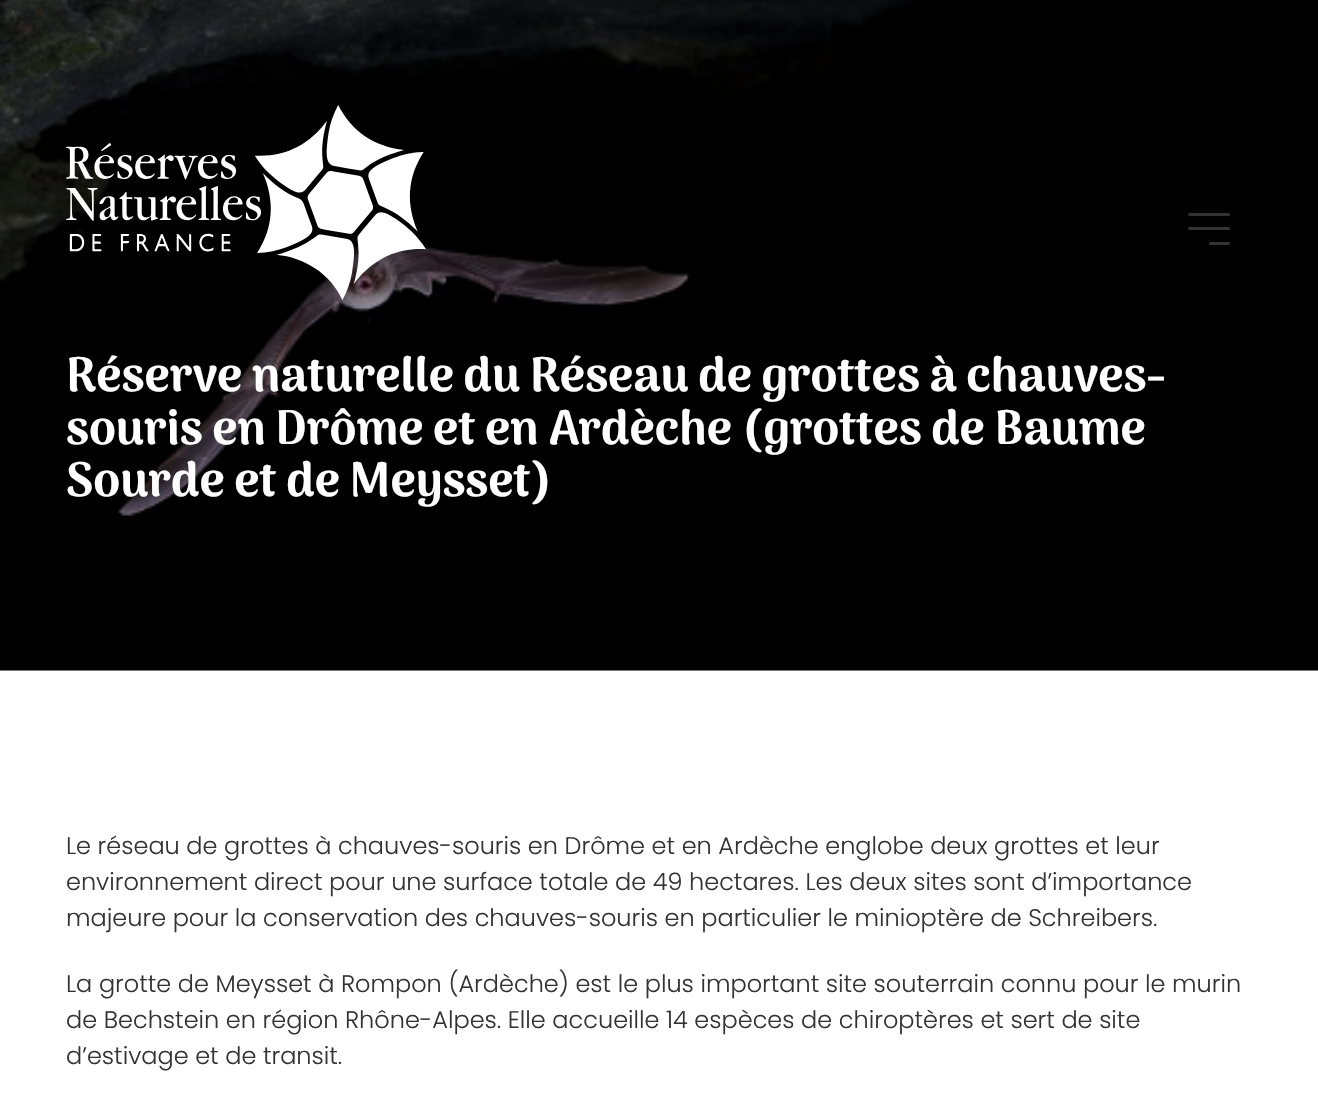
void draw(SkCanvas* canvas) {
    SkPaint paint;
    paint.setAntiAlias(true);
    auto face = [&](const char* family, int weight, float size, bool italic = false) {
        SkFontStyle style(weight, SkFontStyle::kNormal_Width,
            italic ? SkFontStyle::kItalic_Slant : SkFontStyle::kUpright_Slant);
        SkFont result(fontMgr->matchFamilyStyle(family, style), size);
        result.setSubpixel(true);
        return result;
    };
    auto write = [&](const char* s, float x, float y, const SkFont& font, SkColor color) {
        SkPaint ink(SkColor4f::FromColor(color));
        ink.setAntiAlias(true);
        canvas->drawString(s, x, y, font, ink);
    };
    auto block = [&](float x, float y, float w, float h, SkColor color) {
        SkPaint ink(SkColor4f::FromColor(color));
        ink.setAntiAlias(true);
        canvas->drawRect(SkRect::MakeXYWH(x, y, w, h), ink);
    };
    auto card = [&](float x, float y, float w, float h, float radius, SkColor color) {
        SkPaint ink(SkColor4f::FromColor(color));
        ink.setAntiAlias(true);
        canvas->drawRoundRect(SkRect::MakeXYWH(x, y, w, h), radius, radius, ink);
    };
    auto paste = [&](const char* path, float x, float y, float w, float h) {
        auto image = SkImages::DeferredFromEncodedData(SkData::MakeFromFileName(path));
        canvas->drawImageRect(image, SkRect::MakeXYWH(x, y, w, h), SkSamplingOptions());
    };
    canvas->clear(SK_ColorWHITE);
    block(0, 670, 1318, 1, SkColorSetRGB(244, 247, 226));
    paste("pic1.png", 0, 0, 1318, 671);
    {
        const SkColor colors[] = {SkColorSetARGB(0, 0, 0, 0), SkColorSetARGB(153, 0, 0, 0)};
        const float stops[] = {0, 1};
        const SkPoint ends[] = {{659, 671}, {659, 0}};
        paint.setShader(SkGradientShader::MakeLinear(ends, colors, stops, 2, SkTileMode::kClamp));
        paint.setAlpha(255);
    }
    canvas->drawRect(SkRect::MakeXYWH(0, 0, 911, 516), paint);
    paste("pic2.png", 66, 105, 360, 195);
    card(1188, 213, 42, 3, 1.5f, SkColorSetRGB(51, 51, 51));
    card(1188, 227, 42, 3, 1.5f, SkColorSetRGB(51, 51, 51));
    card(1209, 242, 21, 3, 1.5f, SkColorSetRGB(51, 51, 51));
    auto kFont1 = face("Arima", 700, 48);
    write("Réserve naturelle du Réseau de grottes à chauves-", 66, 391, kFont1, SK_ColorWHITE);
    write("souris en Drôme et en Ardèche (grottes de Baume", 66, 444, kFont1, SK_ColorWHITE);
    write("Sourde et de Meysset)", 66, 496, kFont1, SK_ColorWHITE);
    auto kFont2 = face("Poppins", 300, 24);
    write("Le réseau de grottes à chauves-souris en Drôme et en Ardèche englobe deux grottes et leur", 66, 854, kFont2, SkColorSetRGB(51, 51, 51));
    write("environnement direct pour une surface totale de 49 hectares. Les deux sites sont d’importance", 66, 890, kFont2, SkColorSetRGB(51, 51, 51));
    write("majeure pour la conservation des chauves-souris en particulier le minioptère de Schreibers.", 66, 926, kFont2, SkColorSetRGB(51, 51, 51));
    write("La grotte de Meysset à Rompon (Ardèche) est le plus important site souterrain connu pour le murin", 66, 992, kFont2, SkColorSetRGB(51, 51, 51));
    write("de Bechstein en région Rhône-Alpes. Elle accueille 14 espèces de chiroptères et sert de site", 66, 1028, kFont2, SkColorSetRGB(51, 51, 51));
    write("d’estivage et de transit.", 66, 1064, kFont2, SkColorSetRGB(51, 51, 51));
}
